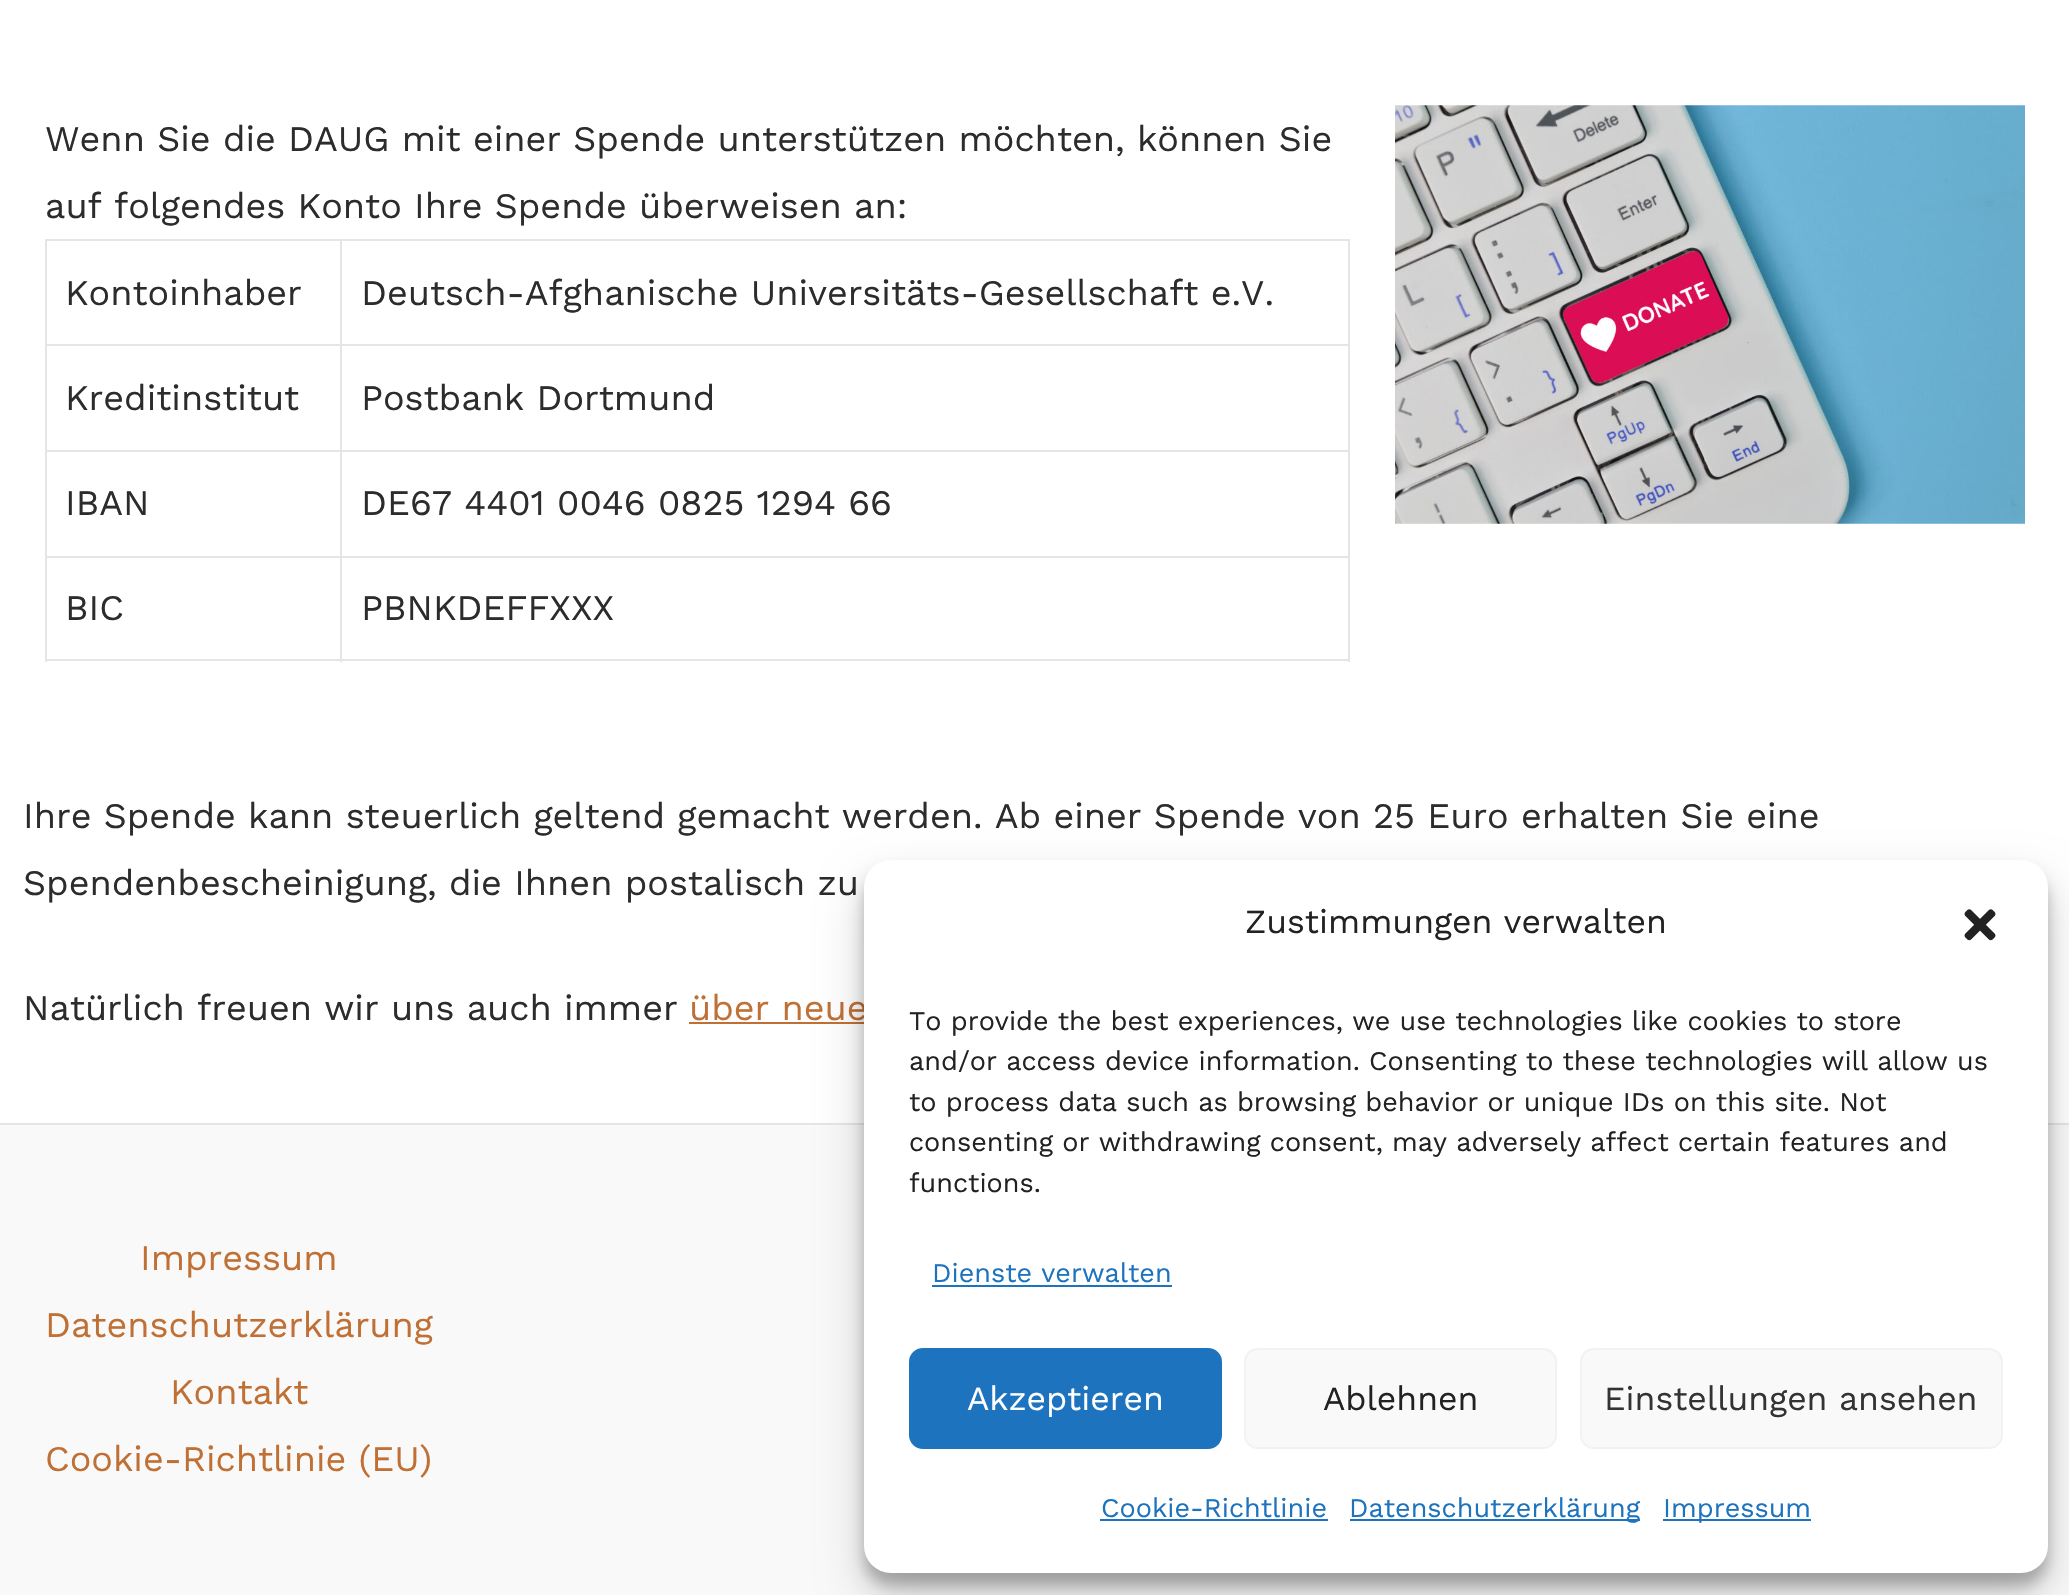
void draw(SkCanvas* canvas) {
    SkPaint paint;
    paint.setAntiAlias(true);
    auto face = [&](const char* family, int weight, float size, bool italic = false) {
        SkFontStyle style(weight, SkFontStyle::kNormal_Width,
            italic ? SkFontStyle::kItalic_Slant : SkFontStyle::kUpright_Slant);
        SkFont result(fontMgr->matchFamilyStyle(family, style), size);
        result.setSubpixel(true);
        return result;
    };
    auto write = [&](const char* s, float x, float y, const SkFont& font, SkColor color) {
        SkPaint ink(SkColor4f::FromColor(color));
        ink.setAntiAlias(true);
        canvas->drawString(s, x, y, font, ink);
    };
    auto block = [&](float x, float y, float w, float h, SkColor color) {
        SkPaint ink(SkColor4f::FromColor(color));
        ink.setAntiAlias(true);
        canvas->drawRect(SkRect::MakeXYWH(x, y, w, h), ink);
    };
    auto card = [&](float x, float y, float w, float h, float radius, SkColor color) {
        SkPaint ink(SkColor4f::FromColor(color));
        ink.setAntiAlias(true);
        canvas->drawRoundRect(SkRect::MakeXYWH(x, y, w, h), radius, radius, ink);
    };
    auto paste = [&](const char* path, float x, float y, float w, float h) {
        auto image = SkImages::DeferredFromEncodedData(SkData::MakeFromFileName(path));
        canvas->drawImageRect(image, SkRect::MakeXYWH(x, y, w, h), SkSamplingOptions());
    };
    canvas->clear(SK_ColorWHITE);
    auto kFont1 = face("Work Sans", 400, 36);
    write("Wenn Sie die DAUG mit einer Spende unterstützen möchten, können Sie", 45, 151, kFont1, SkColorSetRGB(44, 44, 44));
    write("auf folgendes Konto Ihre Spende überweisen an:", 45, 218, kFont1, SkColorSetRGB(44, 44, 44));
    block(45, 239, 1305, 2, SkColorSetRGB(229, 229, 229));
    block(45, 239, 2, 423, SkColorSetRGB(229, 229, 229));
    block(340, 241, 2, 421, SkColorSetRGB(229, 229, 229));
    block(47, 344, 295, 2, SkColorSetRGB(229, 229, 229));
    write("Kontoinhaber", 65, 305, kFont1, SkColorSetRGB(44, 44, 44));
    block(1348, 241, 2, 421, SkColorSetRGB(229, 229, 229));
    block(342, 344, 1008, 2, SkColorSetRGB(229, 229, 229));
    write("Deutsch-Afghanische Universitäts-Gesellschaft e.V.", 361, 305, kFont1, SkColorSetRGB(44, 44, 44));
    block(47, 450, 1303, 2, SkColorSetRGB(229, 229, 229));
    write("Kreditinstitut", 65, 410, kFont1, SkColorSetRGB(44, 44, 44));
    write("Postbank Dortmund", 361, 410, kFont1, SkColorSetRGB(44, 44, 44));
    block(47, 556, 1303, 2, SkColorSetRGB(229, 229, 229));
    write("IBAN", 65, 515, kFont1, SkColorSetRGB(44, 44, 44));
    write("DE67 4401 0046 0825 1294 66", 361, 515, kFont1, SkColorSetRGB(44, 44, 44));
    block(47, 659, 1303, 2, SkColorSetRGB(229, 229, 229));
    write("BIC", 65, 620, kFont1, SkColorSetRGB(44, 44, 44));
    write("PBNKDEFFXXX", 361, 620, kFont1, SkColorSetRGB(44, 44, 44));
    paste("pic1.png", 1395, 105, 630, 419);
    write("Ihre Spende kann steuerlich geltend gemacht werden. Ab einer Spende von 25 Euro erhalten Sie eine", 23, 828, kFont1, SkColorSetRGB(44, 44, 44));
    write("Spendenbescheinigung, die Ihnen postalisch zu", 23, 895, kFont1, SkColorSetRGB(44, 44, 44));
    write("Natürlich freuen wir uns auch immer", 23, 1020, kFont1, SkColorSetRGB(44, 44, 44));
    write("über neue", 689, 1020, kFont1, SkColorSetRGB(192, 112, 53));
    block(689, 1022, 175, 2, SkColorSetRGB(192, 112, 53));
    block(0, 1125, 2069, 470, SkColorSetRGB(249, 249, 249));
    block(0, 1123, 2069, 2, SkColorSetRGB(230, 230, 230));
    write("Impressum", 140, 1270, kFont1, SkColorSetRGB(192, 112, 53));
    write("Datenschutzerklärung", 45, 1337, kFont1, SkColorSetRGB(192, 112, 53));
    write("Kontakt", 170, 1404, kFont1, SkColorSetRGB(192, 112, 53));
    write("Cookie-Richtlinie (EU)", 45, 1471, kFont1, SkColorSetRGB(192, 112, 53));
    paint.setColor(SkColorSetARGB(59, 0, 0, 0));
    paint.setMaskFilter(SkMaskFilter::MakeBlur(kNormal_SkBlurStyle, 7));
    canvas->drawRoundRect(SkRect::MakeXYWH(864, 873, 1184, 713), 27, 27, paint);
    paint.setMaskFilter(nullptr);
    paint.setColor(SkColorSetARGB(48, 0, 0, 0));
    paint.setMaskFilter(SkMaskFilter::MakeBlur(kNormal_SkBlurStyle, 22.5f));
    canvas->drawRoundRect(SkRect::MakeXYWH(864, 882, 1184, 713), 27, 27, paint);
    paint.setMaskFilter(nullptr);
    card(864, 860, 1184, 713, 27, SK_ColorWHITE);
    auto kFont2 = face("Work Sans", 400, 33.75f);
    write("Zustimmungen verwalten", 1245, 933, kFont2, SkColorSetRGB(34, 34, 34));
    paste("pic2.png", 1964, 909, 32, 32);
    auto kFont3 = face("Work Sans", 400, 27);
    write("To provide the best experiences, we use technologies like cookies to store", 909, 1030, kFont3, SkColorSetRGB(34, 34, 34));
    write("and/or access device information. Consenting to these technologies will allow us", 909, 1070, kFont3, SkColorSetRGB(34, 34, 34));
    write("to process data such as browsing behavior or unique IDs on this site. Not", 909, 1111, kFont3, SkColorSetRGB(34, 34, 34));
    write("consenting or withdrawing consent, may adversely affect certain features and", 909, 1151, kFont3, SkColorSetRGB(34, 34, 34));
    write("functions.", 909, 1192, kFont3, SkColorSetRGB(34, 34, 34));
    write("Dienste verwalten", 932, 1282, kFont3, SkColorSetRGB(30, 115, 190));
    block(932, 1285, 240, 2, SkColorSetRGB(30, 115, 190));
    paint.setColor(SkColorSetRGB(30, 115, 190));
    canvas->drawRoundRect(SkRect::MakeXYWH(910, 1349, 311, 99), 13, 13, paint);
    paint.setStyle(SkPaint::kStroke_Style);
    paint.setStrokeWidth(2);
    canvas->drawRoundRect(SkRect::MakeXYWH(910, 1349, 311, 99), 13, 13, paint);
    write("Akzeptieren", 967, 1410, kFont2, SK_ColorWHITE);
    paint.setStyle(SkPaint::kFill_Style);
    paint.setColor(SkColorSetRGB(249, 249, 249));
    canvas->drawRoundRect(SkRect::MakeXYWH(1245, 1349, 311, 99), 13, 13, paint);
    paint.setStyle(SkPaint::kStroke_Style);
    paint.setColor(SkColorSetRGB(242, 242, 242));
    canvas->drawRoundRect(SkRect::MakeXYWH(1245, 1349, 311, 99), 13, 13, paint);
    write("Ablehnen", 1323, 1410, kFont2, SkColorSetRGB(34, 34, 34));
    paint.setStyle(SkPaint::kFill_Style);
    paint.setColor(SkColorSetRGB(249, 249, 249));
    canvas->drawRoundRect(SkRect::MakeXYWH(1581, 1349, 421, 99), 13, 13, paint);
    paint.setStyle(SkPaint::kStroke_Style);
    paint.setColor(SkColorSetRGB(242, 242, 242));
    canvas->drawRoundRect(SkRect::MakeXYWH(1581, 1349, 421, 99), 13, 13, paint);
    write("Einstellungen ansehen", 1604, 1410, kFont2, SkColorSetRGB(51, 51, 51));
    write("Cookie-Richtlinie", 1101, 1517, kFont3, SkColorSetRGB(30, 115, 190));
    block(1100, 1519, 228, 2, SkColorSetRGB(30, 115, 190));
    block(1350, 1519, 290, 2, SkColorSetRGB(30, 115, 190));
    write("Datenschutzerklärung", 1349, 1517, kFont3, SkColorSetRGB(30, 115, 190));
    block(1663, 1519, 148, 2, SkColorSetRGB(30, 115, 190));
    write("Impressum", 1663, 1517, kFont3, SkColorSetRGB(30, 115, 190));
}
